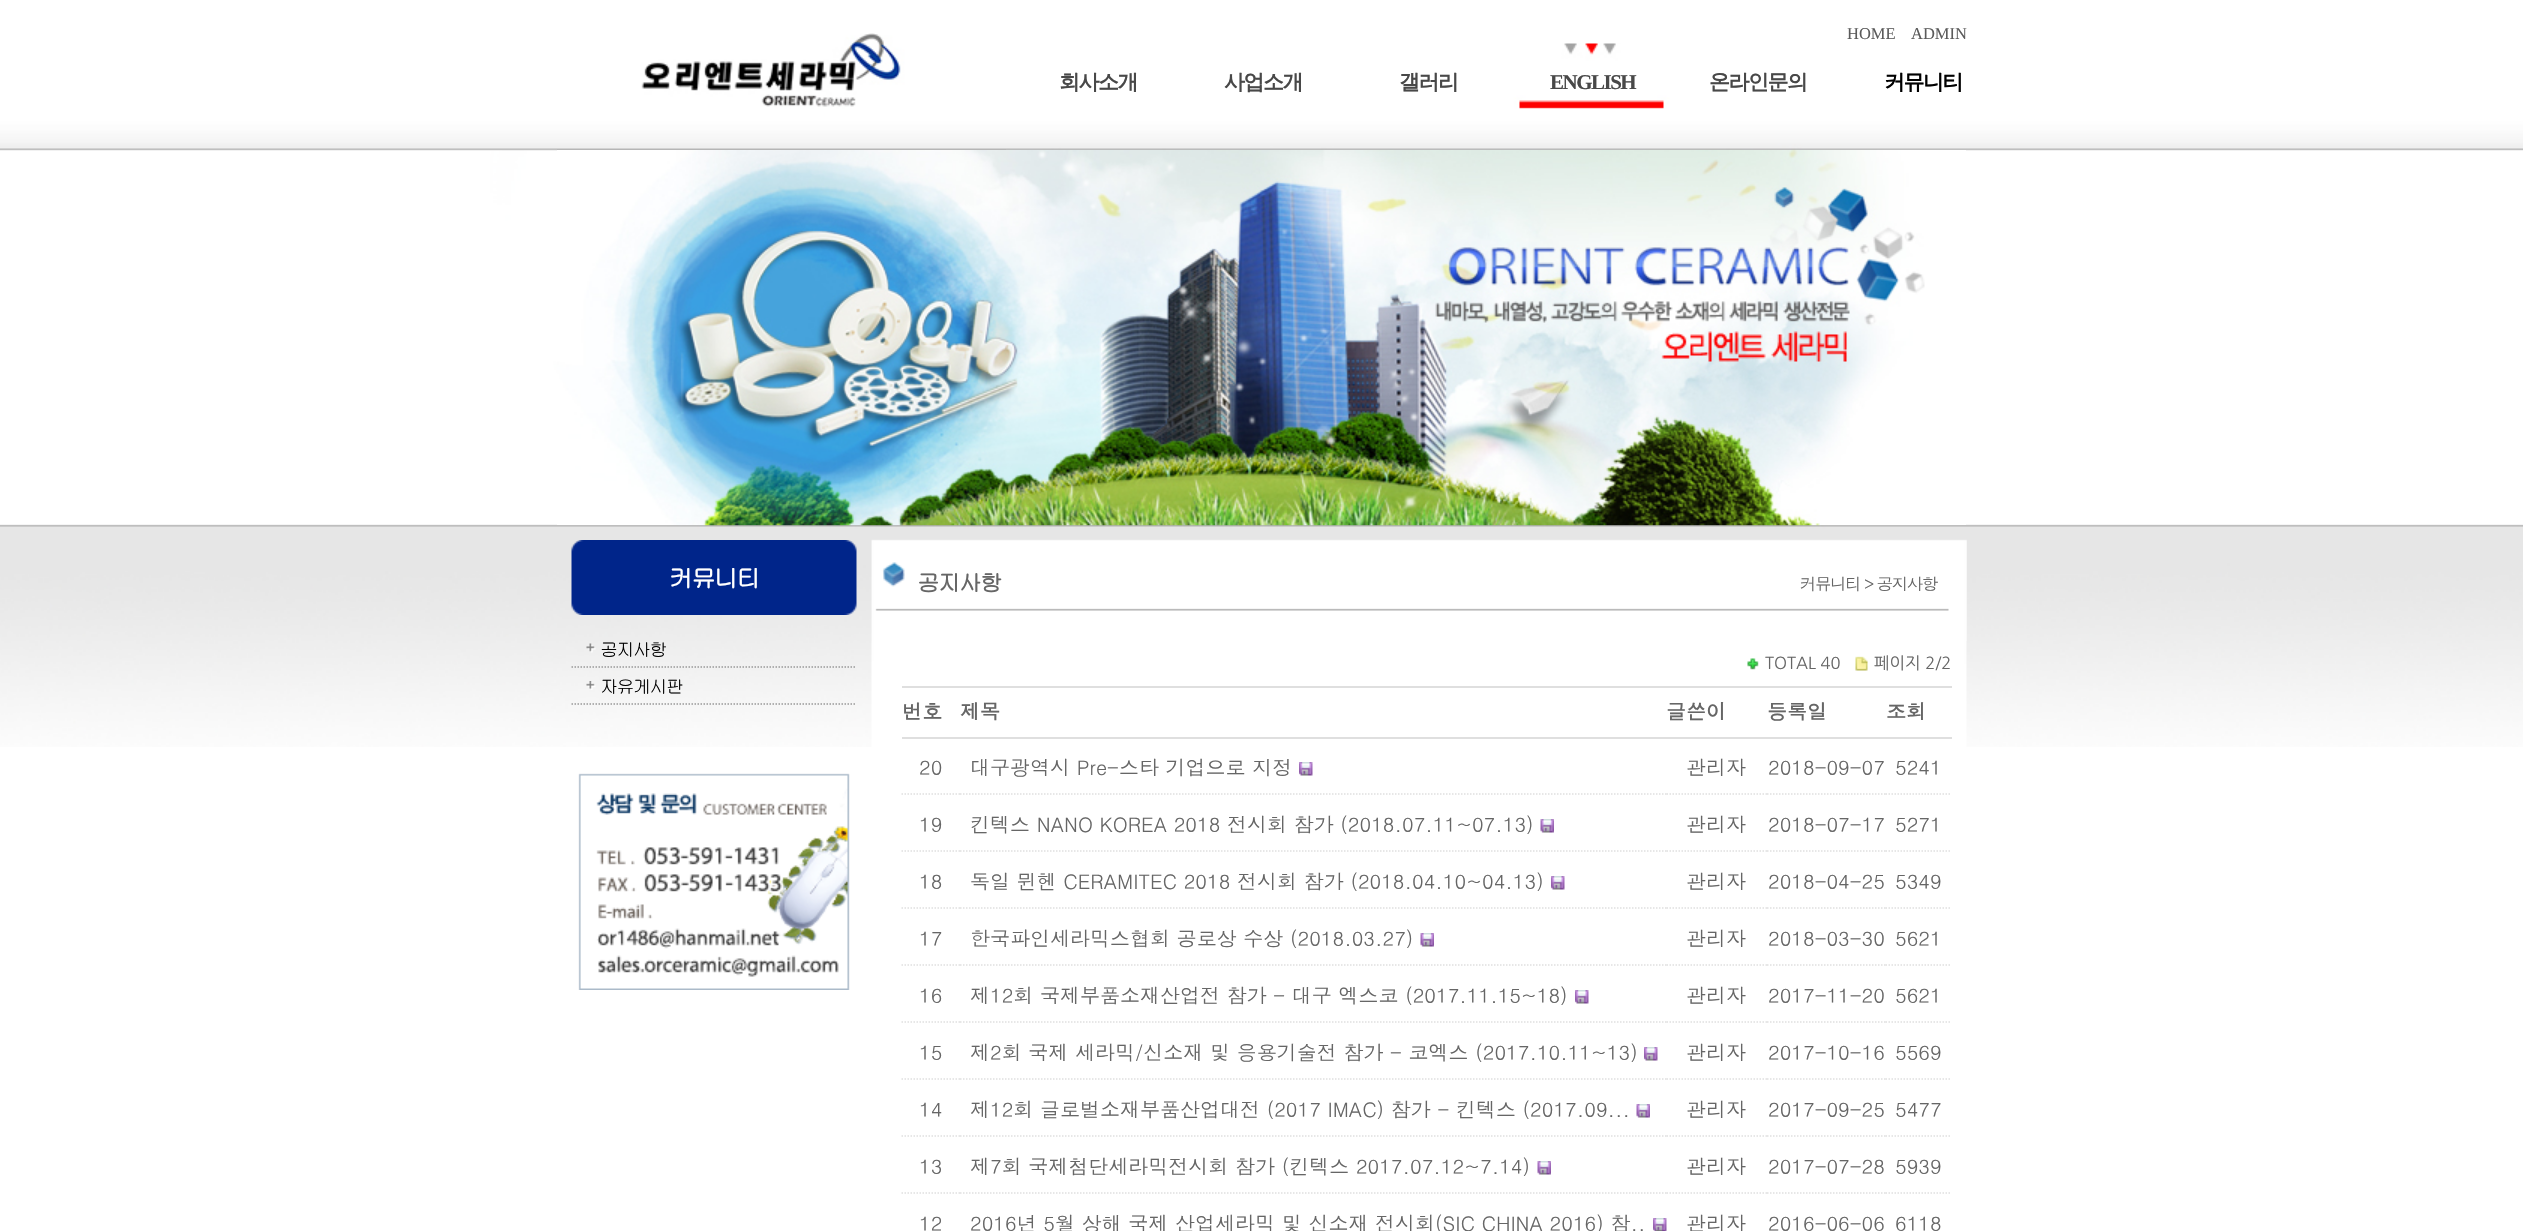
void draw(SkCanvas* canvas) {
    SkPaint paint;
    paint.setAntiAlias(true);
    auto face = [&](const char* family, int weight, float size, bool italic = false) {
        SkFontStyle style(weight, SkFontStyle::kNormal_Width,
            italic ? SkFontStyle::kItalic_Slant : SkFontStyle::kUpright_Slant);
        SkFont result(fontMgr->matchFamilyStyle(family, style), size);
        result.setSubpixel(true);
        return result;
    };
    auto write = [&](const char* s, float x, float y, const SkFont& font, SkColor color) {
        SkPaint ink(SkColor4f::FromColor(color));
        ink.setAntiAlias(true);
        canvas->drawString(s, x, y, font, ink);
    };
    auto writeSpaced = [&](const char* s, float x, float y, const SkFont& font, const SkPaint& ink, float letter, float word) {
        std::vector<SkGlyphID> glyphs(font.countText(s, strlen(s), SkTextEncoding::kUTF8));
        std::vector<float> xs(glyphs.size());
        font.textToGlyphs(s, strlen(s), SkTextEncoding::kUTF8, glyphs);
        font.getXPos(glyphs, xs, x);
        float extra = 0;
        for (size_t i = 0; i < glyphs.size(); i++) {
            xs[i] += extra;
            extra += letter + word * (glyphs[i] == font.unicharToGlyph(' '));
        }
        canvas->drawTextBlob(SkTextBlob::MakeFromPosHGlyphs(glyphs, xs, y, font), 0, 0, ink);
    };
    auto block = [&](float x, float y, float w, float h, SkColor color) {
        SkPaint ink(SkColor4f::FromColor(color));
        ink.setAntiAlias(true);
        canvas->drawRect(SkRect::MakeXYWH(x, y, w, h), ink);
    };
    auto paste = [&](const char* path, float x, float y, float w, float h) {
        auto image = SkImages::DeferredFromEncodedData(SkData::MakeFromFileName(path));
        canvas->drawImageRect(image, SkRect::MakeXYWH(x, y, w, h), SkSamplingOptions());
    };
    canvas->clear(SK_ColorWHITE);
    paste("pic1.png", 0, 43, 2523, 704);
    paste("pic2.png", 769, 490, 1198, 151);
    paste("pic3.png", 557, 33, 449, 117);
    auto kFont1 = face("Liberation Serif", 400, 16.5f);
    write("HOME", 1847, 39, kFont1, SkColorSetRGB(91, 91, 91));
    write("ADMIN", 1911, 39, kFont1, SkColorSetRGB(91, 91, 91));
    auto kFont2 = face("WenQuanYi Zen Hei", 700, 21);
    paint.setColor(SkColorSetRGB(72, 72, 72));
    writeSpaced("회사소개", 1059, 89, kFont2, paint, -1.5f, 0);
    writeSpaced("사업소개", 1224, 89, kFont2, paint, -1.5f, 0);
    writeSpaced("갤러리", 1399, 89, kFont2, paint, -1.5f, 0);
    auto kFont3 = face("Liberation Serif", 700, 21);
    writeSpaced("ENGLISH", 1550, 89, kFont3, paint, -1.5f, 0);
    writeSpaced("온라인문의", 1709, 89, kFont2, paint, -1.5f, 0);
    paint.setColor(SK_ColorBLACK);
    writeSpaced("커뮤니티", 1884, 89, kFont2, paint, -1.5f, 0);
    paste("pic4.png", 557, 150, 1409, 375);
    paste("pic5.png", 648, 200, 13, 260);
    paste("pic6.png", 661, 200, 357, 260);
    paste("pic7.png", 571, 540, 286, 75);
    auto kFont4 = face("Gulim", 700, 24);
    paint.setColor(SK_ColorWHITE);
    writeSpaced("커뮤니티", 669, 587, kFont4, paint, -1.5f, 0);
    paint.setStyle(SkPaint::kStroke_Style);
    paint.setStrokeWidth(1.5f);
    paint.setColor(SkColorSetRGB(153, 153, 153));
    paint.setPathEffect(SkDashPathEffect::Make({{1.5f, 1.5f}}, 0));
    canvas->drawPath(SkPathBuilder().moveTo(571.5f, 667).lineTo(856.5f, 667).detach(), paint);
    paint.setPathEffect(nullptr);
    paste("pic8.png", 586, 643, 10, 10);
    auto kFont5 = face("Gulim", 400, 18);
    paint.setStyle(SkPaint::kFill_Style);
    paint.setColor(SK_ColorBLACK);
    writeSpaced("공지사항", 600, 656, kFont5, paint, -1.5f, 0);
    paint.setStyle(SkPaint::kStroke_Style);
    paint.setColor(SkColorSetRGB(153, 153, 153));
    paint.setPathEffect(SkDashPathEffect::Make({{1.5f, 1.5f}}, 0));
    canvas->drawPath(SkPathBuilder().moveTo(571.5f, 704).lineTo(856.5f, 704).detach(), paint);
    paint.setPathEffect(nullptr);
    paste("pic9.png", 586, 681, 10, 9);
    paint.setStyle(SkPaint::kFill_Style);
    paint.setColor(SK_ColorBLACK);
    writeSpaced("자유게시판", 600, 693, kFont5, paint, -1.5f, 0);
    paste("pic10.png", 578, 773, 272, 217);
    paste("pic11.png", 875, 562, 1074, 49);
    auto kFont6 = face("Gulim", 700, 22.5f);
    paint.setColor(SkColorSetRGB(102, 102, 102));
    writeSpaced("공지사항", 917, 591, kFont6, paint, -1.5f, 0);
    auto kFont7 = face("Dotum", 400, 16.5f);
    writeSpaced("커뮤니티 > 공지사항", 1800, 590, kFont7, paint, -1.5f, 0);
    block(902, 686, 1050, 2, SkColorSetRGB(223, 223, 223));
    paste("pic12.png", 1747, 658, 12, 12);
    auto kFont8 = face("NanumGothic", 400, 16.5f);
    write("TOTAL 40", 1765, 669, kFont8, SkColorSetRGB(102, 102, 102));
    paste("pic13.png", 1855, 656, 13, 15);
    write("페이지 2/2", 1874, 669, kFont8, SkColorSetRGB(102, 102, 102));
    block(902, 737, 1050, 2, SkColorSetRGB(223, 223, 223));
    auto kFont9 = face("Dotum", 700, 20);
    write("번호", 902, 719, kFont9, SkColorSetRGB(102, 102, 102));
    write("제목", 960, 719, kFont9, SkColorSetRGB(102, 102, 102));
    write("글쓴이", 1666, 719, kFont9, SkColorSetRGB(102, 102, 102));
    write("등록일", 1767, 719, kFont9, SkColorSetRGB(102, 102, 102));
    write("조회", 1886, 719, kFont9, SkColorSetRGB(102, 102, 102));
    paint.setStyle(SkPaint::kStroke_Style);
    paint.setColor(SkColorSetRGB(223, 223, 223));
    paint.setPathEffect(SkDashPathEffect::Make({{1.5f, 1.5f}}, 0));
    canvas->drawPath(SkPathBuilder().moveTo(901.5f, 794).lineTo(960, 794).detach(), paint);
    paint.setPathEffect(nullptr);
    auto kFont10 = face("Dotum", 400, 20);
    write("20", 919, 775, kFont10, SkColorSetRGB(102, 102, 102));
    paint.setPathEffect(SkDashPathEffect::Make({{1.5f, 1.5f}}, 0));
    canvas->drawPath(SkPathBuilder().moveTo(960, 794).lineTo(1666.5f, 794).detach(), paint);
    paint.setPathEffect(nullptr);
    write("대구광역시 Pre-스타 기업으로 지정", 970, 775, kFont10, SkColorSetRGB(102, 102, 102));
    paste("pic14.png", 1299, 762, 14, 14);
    paint.setPathEffect(SkDashPathEffect::Make({{1.5f, 1.5f}}, 0));
    canvas->drawPath(SkPathBuilder().moveTo(1666.5f, 794).lineTo(1767, 794).detach(), paint);
    paint.setPathEffect(nullptr);
    write("관리자", 1686, 775, kFont10, SkColorSetRGB(102, 102, 102));
    paint.setPathEffect(SkDashPathEffect::Make({{1.5f, 1.5f}}, 0));
    canvas->drawPath(SkPathBuilder().moveTo(1767, 794).lineTo(1885.5f, 794).detach(), paint);
    paint.setPathEffect(nullptr);
    write("2018-09-07", 1768, 775, kFont10, SkColorSetRGB(102, 102, 102));
    paint.setPathEffect(SkDashPathEffect::Make({{1.5f, 1.5f}}, 0));
    canvas->drawPath(SkPathBuilder().moveTo(1885.5f, 794).lineTo(1951.5f, 794).detach(), paint);
    paint.setPathEffect(nullptr);
    write("5241", 1895, 775, kFont10, SkColorSetRGB(102, 102, 102));
    paint.setPathEffect(SkDashPathEffect::Make({{1.5f, 1.5f}}, 0));
    canvas->drawPath(SkPathBuilder().moveTo(901.5f, 851).lineTo(960, 851).detach(), paint);
    paint.setPathEffect(nullptr);
    write("19", 919, 832, kFont10, SkColorSetRGB(102, 102, 102));
    paint.setPathEffect(SkDashPathEffect::Make({{1.5f, 1.5f}}, 0));
    canvas->drawPath(SkPathBuilder().moveTo(960, 851).lineTo(1666.5f, 851).detach(), paint);
    paint.setPathEffect(nullptr);
    write("킨텍스 NANO KOREA 2018 전시회 참가 (2018.07.11~07.13)", 970, 832, kFont10, SkColorSetRGB(102, 102, 102));
    paste("pic15.png", 1540, 819, 14, 14);
    paint.setPathEffect(SkDashPathEffect::Make({{1.5f, 1.5f}}, 0));
    canvas->drawPath(SkPathBuilder().moveTo(1666.5f, 851).lineTo(1767, 851).detach(), paint);
    paint.setPathEffect(nullptr);
    write("관리자", 1686, 832, kFont10, SkColorSetRGB(102, 102, 102));
    paint.setPathEffect(SkDashPathEffect::Make({{1.5f, 1.5f}}, 0));
    canvas->drawPath(SkPathBuilder().moveTo(1767, 851).lineTo(1885.5f, 851).detach(), paint);
    paint.setPathEffect(nullptr);
    write("2018-07-17", 1768, 832, kFont10, SkColorSetRGB(102, 102, 102));
    paint.setPathEffect(SkDashPathEffect::Make({{1.5f, 1.5f}}, 0));
    canvas->drawPath(SkPathBuilder().moveTo(1885.5f, 851).lineTo(1951.5f, 851).detach(), paint);
    paint.setPathEffect(nullptr);
    write("5271", 1895, 832, kFont10, SkColorSetRGB(102, 102, 102));
    paint.setPathEffect(SkDashPathEffect::Make({{1.5f, 1.5f}}, 0));
    canvas->drawPath(SkPathBuilder().moveTo(901.5f, 908).lineTo(960, 908).detach(), paint);
    paint.setPathEffect(nullptr);
    write("18", 919, 889, kFont10, SkColorSetRGB(102, 102, 102));
    paint.setPathEffect(SkDashPathEffect::Make({{1.5f, 1.5f}}, 0));
    canvas->drawPath(SkPathBuilder().moveTo(960, 908).lineTo(1666.5f, 908).detach(), paint);
    paint.setPathEffect(nullptr);
    write("독일 뮌헨 CERAMITEC 2018 전시회 참가 (2018.04.10~04.13)", 970, 889, kFont10, SkColorSetRGB(102, 102, 102));
    paste("pic14.png", 1551, 876, 14, 14);
    paint.setPathEffect(SkDashPathEffect::Make({{1.5f, 1.5f}}, 0));
    canvas->drawPath(SkPathBuilder().moveTo(1666.5f, 908).lineTo(1767, 908).detach(), paint);
    paint.setPathEffect(nullptr);
    write("관리자", 1686, 889, kFont10, SkColorSetRGB(102, 102, 102));
    paint.setPathEffect(SkDashPathEffect::Make({{1.5f, 1.5f}}, 0));
    canvas->drawPath(SkPathBuilder().moveTo(1767, 908).lineTo(1885.5f, 908).detach(), paint);
    paint.setPathEffect(nullptr);
    write("2018-04-25", 1768, 889, kFont10, SkColorSetRGB(102, 102, 102));
    paint.setPathEffect(SkDashPathEffect::Make({{1.5f, 1.5f}}, 0));
    canvas->drawPath(SkPathBuilder().moveTo(1885.5f, 908).lineTo(1951.5f, 908).detach(), paint);
    paint.setPathEffect(nullptr);
    write("5349", 1895, 889, kFont10, SkColorSetRGB(102, 102, 102));
    paint.setPathEffect(SkDashPathEffect::Make({{1.5f, 1.5f}}, 0));
    canvas->drawPath(SkPathBuilder().moveTo(901.5f, 965).lineTo(960, 965).detach(), paint);
    paint.setPathEffect(nullptr);
    write("17", 919, 946, kFont10, SkColorSetRGB(102, 102, 102));
    paint.setPathEffect(SkDashPathEffect::Make({{1.5f, 1.5f}}, 0));
    canvas->drawPath(SkPathBuilder().moveTo(960, 965).lineTo(1666.5f, 965).detach(), paint);
    paint.setPathEffect(nullptr);
    write("한국파인세라믹스협회 공로상 수상 (2018.03.27)", 970, 946, kFont10, SkColorSetRGB(102, 102, 102));
    paste("pic16.png", 1420, 933, 14, 14);
    paint.setPathEffect(SkDashPathEffect::Make({{1.5f, 1.5f}}, 0));
    canvas->drawPath(SkPathBuilder().moveTo(1666.5f, 965).lineTo(1767, 965).detach(), paint);
    paint.setPathEffect(nullptr);
    write("관리자", 1686, 946, kFont10, SkColorSetRGB(102, 102, 102));
    paint.setPathEffect(SkDashPathEffect::Make({{1.5f, 1.5f}}, 0));
    canvas->drawPath(SkPathBuilder().moveTo(1767, 965).lineTo(1885.5f, 965).detach(), paint);
    paint.setPathEffect(nullptr);
    write("2018-03-30", 1768, 946, kFont10, SkColorSetRGB(102, 102, 102));
    paint.setPathEffect(SkDashPathEffect::Make({{1.5f, 1.5f}}, 0));
    canvas->drawPath(SkPathBuilder().moveTo(1885.5f, 965).lineTo(1951.5f, 965).detach(), paint);
    paint.setPathEffect(nullptr);
    write("5621", 1895, 946, kFont10, SkColorSetRGB(102, 102, 102));
    paint.setPathEffect(SkDashPathEffect::Make({{1.5f, 1.5f}}, 0));
    canvas->drawPath(SkPathBuilder().moveTo(901.5f, 1022).lineTo(960, 1022).detach(), paint);
    paint.setPathEffect(nullptr);
    write("16", 919, 1003, kFont10, SkColorSetRGB(102, 102, 102));
    paint.setPathEffect(SkDashPathEffect::Make({{1.5f, 1.5f}}, 0));
    canvas->drawPath(SkPathBuilder().moveTo(960, 1022).lineTo(1666.5f, 1022).detach(), paint);
    paint.setPathEffect(nullptr);
    write("제12회 국제부품소재산업전 참가 - 대구 엑스코 (2017.11.15~18)", 970, 1003, kFont10, SkColorSetRGB(102, 102, 102));
    paste("pic14.png", 1575, 990, 14, 14);
    paint.setPathEffect(SkDashPathEffect::Make({{1.5f, 1.5f}}, 0));
    canvas->drawPath(SkPathBuilder().moveTo(1666.5f, 1022).lineTo(1767, 1022).detach(), paint);
    paint.setPathEffect(nullptr);
    write("관리자", 1686, 1003, kFont10, SkColorSetRGB(102, 102, 102));
    paint.setPathEffect(SkDashPathEffect::Make({{1.5f, 1.5f}}, 0));
    canvas->drawPath(SkPathBuilder().moveTo(1767, 1022).lineTo(1885.5f, 1022).detach(), paint);
    paint.setPathEffect(nullptr);
    write("2017-11-20", 1768, 1003, kFont10, SkColorSetRGB(102, 102, 102));
    paint.setPathEffect(SkDashPathEffect::Make({{1.5f, 1.5f}}, 0));
    canvas->drawPath(SkPathBuilder().moveTo(1885.5f, 1022).lineTo(1951.5f, 1022).detach(), paint);
    paint.setPathEffect(nullptr);
    write("5621", 1895, 1003, kFont10, SkColorSetRGB(102, 102, 102));
    paint.setPathEffect(SkDashPathEffect::Make({{1.5f, 1.5f}}, 0));
    canvas->drawPath(SkPathBuilder().moveTo(901.5f, 1079).lineTo(960, 1079).detach(), paint);
    paint.setPathEffect(nullptr);
    write("15", 919, 1060, kFont10, SkColorSetRGB(102, 102, 102));
    paint.setPathEffect(SkDashPathEffect::Make({{1.5f, 1.5f}}, 0));
    canvas->drawPath(SkPathBuilder().moveTo(960, 1079).lineTo(1666.5f, 1079).detach(), paint);
    paint.setPathEffect(nullptr);
    write("제2회 국제 세라믹/신소재 및 응용기술전 참가 - 코엑스 (2017.10.11~13)", 970, 1060, kFont10, SkColorSetRGB(102, 102, 102));
    paste("pic14.png", 1644, 1047, 14, 14);
    paint.setPathEffect(SkDashPathEffect::Make({{1.5f, 1.5f}}, 0));
    canvas->drawPath(SkPathBuilder().moveTo(1666.5f, 1079).lineTo(1767, 1079).detach(), paint);
    paint.setPathEffect(nullptr);
    write("관리자", 1686, 1060, kFont10, SkColorSetRGB(102, 102, 102));
    paint.setPathEffect(SkDashPathEffect::Make({{1.5f, 1.5f}}, 0));
    canvas->drawPath(SkPathBuilder().moveTo(1767, 1079).lineTo(1885.5f, 1079).detach(), paint);
    paint.setPathEffect(nullptr);
    write("2017-10-16", 1768, 1060, kFont10, SkColorSetRGB(102, 102, 102));
    paint.setPathEffect(SkDashPathEffect::Make({{1.5f, 1.5f}}, 0));
    canvas->drawPath(SkPathBuilder().moveTo(1885.5f, 1079).lineTo(1951.5f, 1079).detach(), paint);
    paint.setPathEffect(nullptr);
    write("5569", 1895, 1060, kFont10, SkColorSetRGB(102, 102, 102));
    paint.setPathEffect(SkDashPathEffect::Make({{1.5f, 1.5f}}, 0));
    canvas->drawPath(SkPathBuilder().moveTo(901.5f, 1136).lineTo(960, 1136).detach(), paint);
    paint.setPathEffect(nullptr);
    write("14", 919, 1117, kFont10, SkColorSetRGB(102, 102, 102));
    paint.setPathEffect(SkDashPathEffect::Make({{1.5f, 1.5f}}, 0));
    canvas->drawPath(SkPathBuilder().moveTo(960, 1136).lineTo(1666.5f, 1136).detach(), paint);
    paint.setPathEffect(nullptr);
    write("제12회 글로벌소재부품산업대전 (2017 IMAC) 참가 - 킨텍스 (2017.09...", 970, 1117, kFont10, SkColorSetRGB(102, 102, 102));
    paste("pic15.png", 1636, 1104, 14, 14);
    paint.setPathEffect(SkDashPathEffect::Make({{1.5f, 1.5f}}, 0));
    canvas->drawPath(SkPathBuilder().moveTo(1666.5f, 1136).lineTo(1767, 1136).detach(), paint);
    paint.setPathEffect(nullptr);
    write("관리자", 1686, 1117, kFont10, SkColorSetRGB(102, 102, 102));
    paint.setPathEffect(SkDashPathEffect::Make({{1.5f, 1.5f}}, 0));
    canvas->drawPath(SkPathBuilder().moveTo(1767, 1136).lineTo(1885.5f, 1136).detach(), paint);
    paint.setPathEffect(nullptr);
    write("2017-09-25", 1768, 1117, kFont10, SkColorSetRGB(102, 102, 102));
    paint.setPathEffect(SkDashPathEffect::Make({{1.5f, 1.5f}}, 0));
    canvas->drawPath(SkPathBuilder().moveTo(1885.5f, 1136).lineTo(1951.5f, 1136).detach(), paint);
    paint.setPathEffect(nullptr);
    write("5477", 1895, 1117, kFont10, SkColorSetRGB(102, 102, 102));
    paint.setPathEffect(SkDashPathEffect::Make({{1.5f, 1.5f}}, 0));
    canvas->drawPath(SkPathBuilder().moveTo(901.5f, 1193).lineTo(960, 1193).detach(), paint);
    paint.setPathEffect(nullptr);
    write("13", 919, 1174, kFont10, SkColorSetRGB(102, 102, 102));
    paint.setPathEffect(SkDashPathEffect::Make({{1.5f, 1.5f}}, 0));
    canvas->drawPath(SkPathBuilder().moveTo(960, 1193).lineTo(1666.5f, 1193).detach(), paint);
    paint.setPathEffect(nullptr);
    write("제7회 국제첨단세라믹전시회 참가 (킨텍스 2017.07.12~7.14)", 970, 1174, kFont10, SkColorSetRGB(102, 102, 102));
    paste("pic15.png", 1537, 1161, 14, 14);
    paint.setPathEffect(SkDashPathEffect::Make({{1.5f, 1.5f}}, 0));
    canvas->drawPath(SkPathBuilder().moveTo(1666.5f, 1193).lineTo(1767, 1193).detach(), paint);
    paint.setPathEffect(nullptr);
    write("관리자", 1686, 1174, kFont10, SkColorSetRGB(102, 102, 102));
    paint.setPathEffect(SkDashPathEffect::Make({{1.5f, 1.5f}}, 0));
    canvas->drawPath(SkPathBuilder().moveTo(1767, 1193).lineTo(1885.5f, 1193).detach(), paint);
    paint.setPathEffect(nullptr);
    write("2017-07-28", 1768, 1174, kFont10, SkColorSetRGB(102, 102, 102));
    paint.setPathEffect(SkDashPathEffect::Make({{1.5f, 1.5f}}, 0));
    canvas->drawPath(SkPathBuilder().moveTo(1885.5f, 1193).lineTo(1951.5f, 1193).detach(), paint);
    paint.setPathEffect(nullptr);
    write("5939", 1895, 1174, kFont10, SkColorSetRGB(102, 102, 102));
    write("12", 919, 1231, kFont10, SkColorSetRGB(102, 102, 102));
    write("2016년 5월 상해 국제 산업세라믹 및 신소재 전시회(SIC CHINA 2016) 참..", 970, 1231, kFont10, SkColorSetRGB(102, 102, 102));
    paste("pic17.png", 1653, 1218, 14, 13);
    write("관리자", 1686, 1231, kFont10, SkColorSetRGB(102, 102, 102));
    write("2016-06-06", 1768, 1231, kFont10, SkColorSetRGB(102, 102, 102));
    write("6118", 1895, 1231, kFont10, SkColorSetRGB(102, 102, 102));
}
